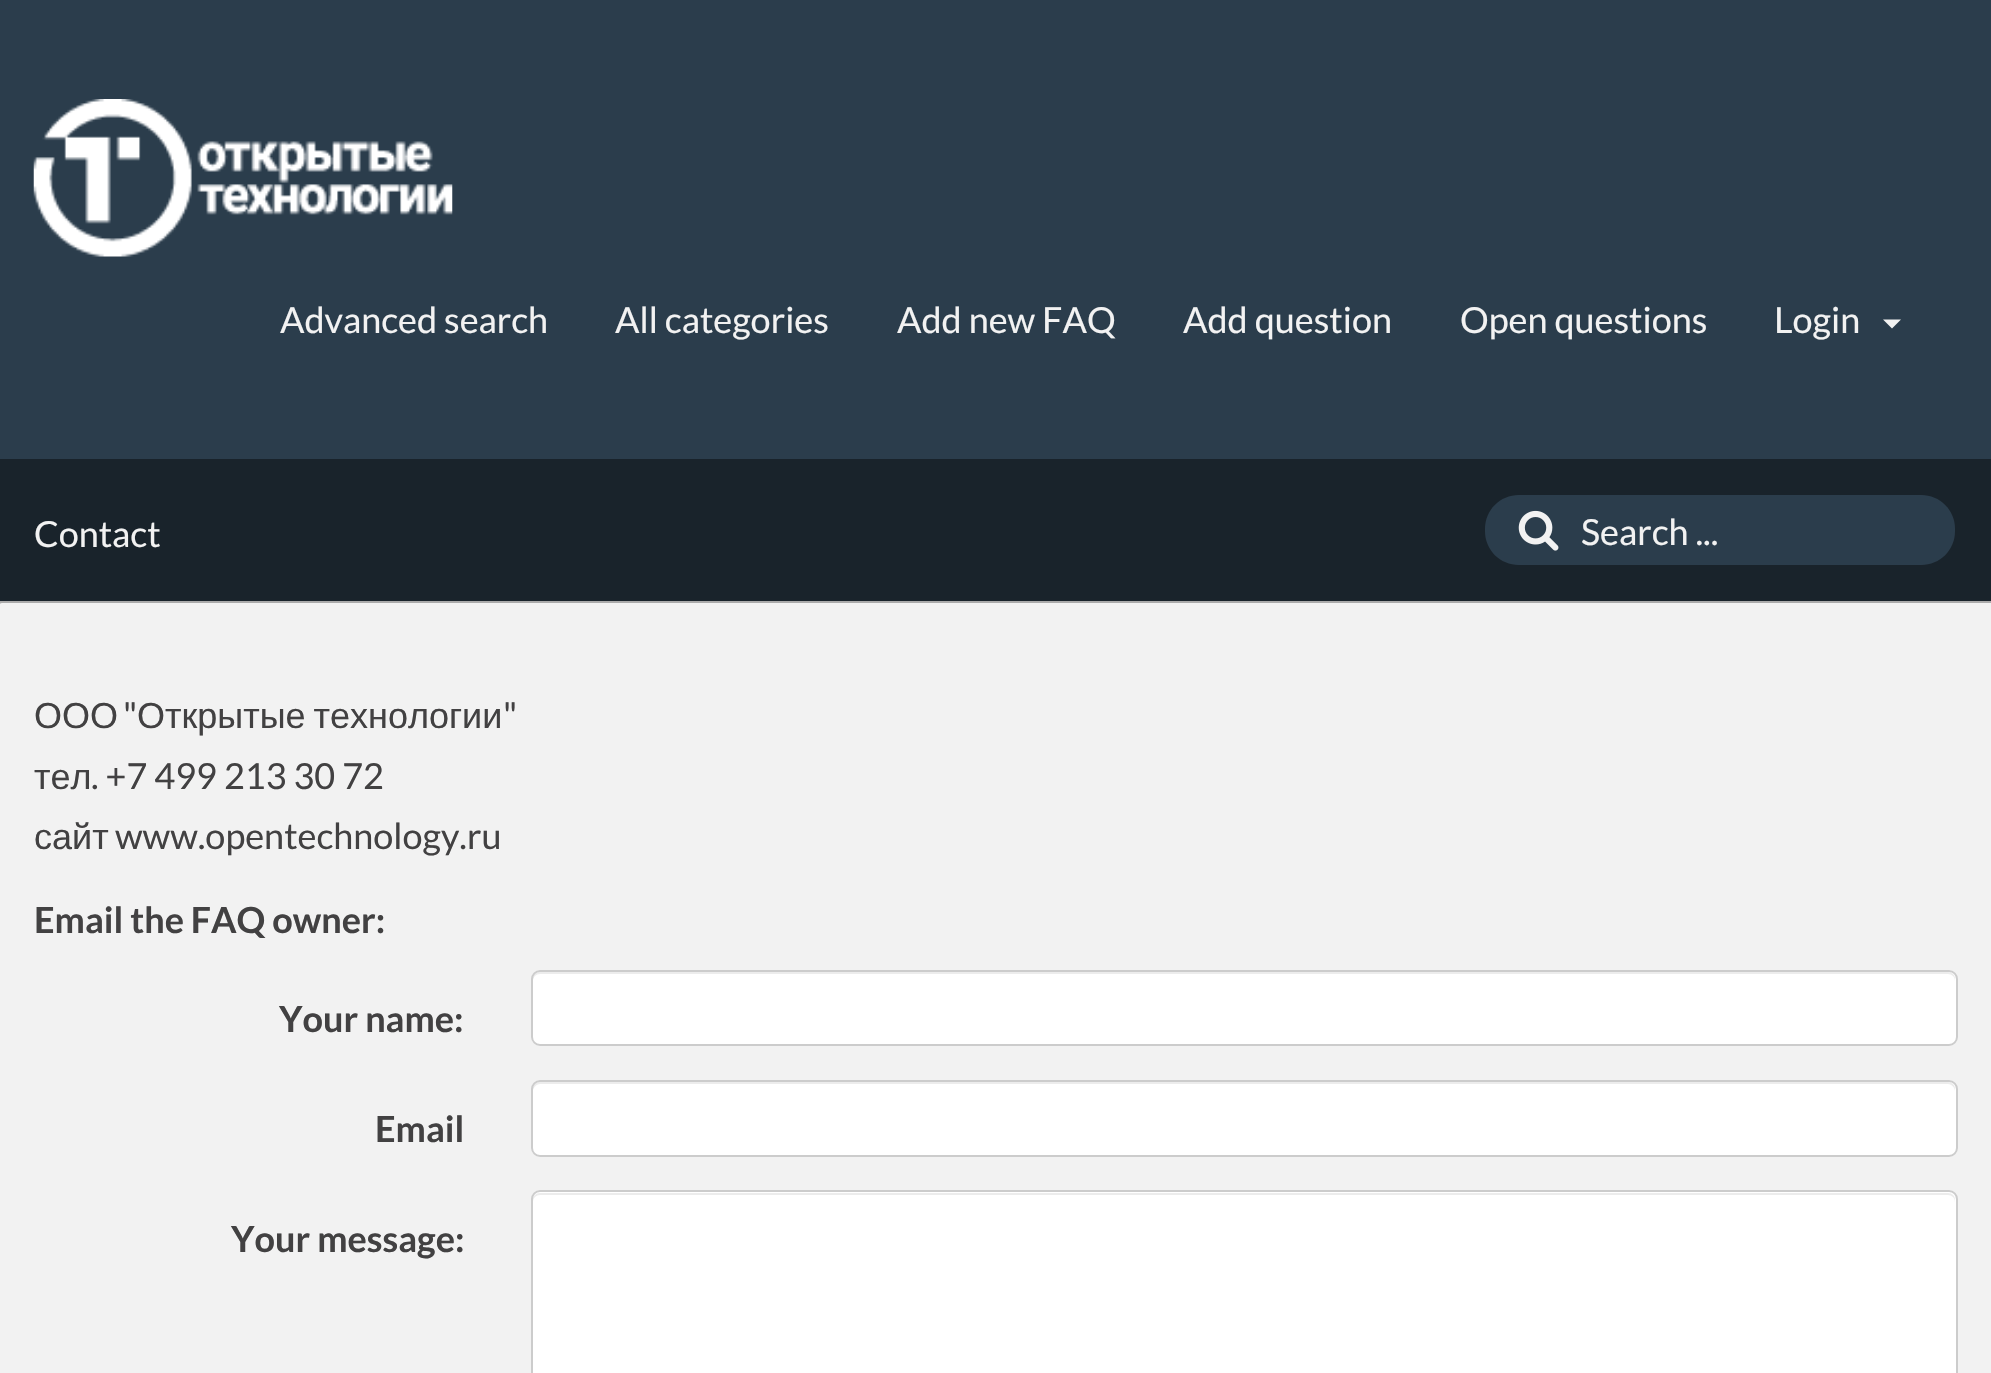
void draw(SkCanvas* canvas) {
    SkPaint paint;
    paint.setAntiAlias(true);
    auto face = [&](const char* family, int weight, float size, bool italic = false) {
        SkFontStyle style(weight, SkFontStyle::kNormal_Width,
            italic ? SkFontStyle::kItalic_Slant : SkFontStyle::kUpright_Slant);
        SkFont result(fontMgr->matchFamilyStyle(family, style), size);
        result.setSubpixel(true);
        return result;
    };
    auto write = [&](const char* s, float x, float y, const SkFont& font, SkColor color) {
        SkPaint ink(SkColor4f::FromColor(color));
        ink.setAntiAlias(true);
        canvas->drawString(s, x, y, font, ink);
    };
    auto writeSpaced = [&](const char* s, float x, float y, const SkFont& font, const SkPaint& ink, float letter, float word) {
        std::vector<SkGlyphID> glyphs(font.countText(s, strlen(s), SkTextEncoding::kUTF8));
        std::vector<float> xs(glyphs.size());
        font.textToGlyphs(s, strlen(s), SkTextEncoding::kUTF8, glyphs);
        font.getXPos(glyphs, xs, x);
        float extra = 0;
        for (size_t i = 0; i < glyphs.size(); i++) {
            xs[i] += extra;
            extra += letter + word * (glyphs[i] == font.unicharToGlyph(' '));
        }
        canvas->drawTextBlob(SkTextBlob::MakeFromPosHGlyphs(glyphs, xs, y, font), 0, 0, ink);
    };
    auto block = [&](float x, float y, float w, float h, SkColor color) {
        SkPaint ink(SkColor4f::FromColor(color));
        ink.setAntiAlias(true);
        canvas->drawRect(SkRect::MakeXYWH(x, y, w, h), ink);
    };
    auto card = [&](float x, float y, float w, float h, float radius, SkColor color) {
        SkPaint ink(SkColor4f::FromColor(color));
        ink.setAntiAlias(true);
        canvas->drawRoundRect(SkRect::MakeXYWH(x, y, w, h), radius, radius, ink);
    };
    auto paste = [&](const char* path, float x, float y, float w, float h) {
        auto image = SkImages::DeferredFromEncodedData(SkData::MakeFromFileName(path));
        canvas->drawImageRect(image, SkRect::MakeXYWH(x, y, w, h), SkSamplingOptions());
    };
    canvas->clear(SkColorSetRGB(242, 242, 242));
    block(0, 0, 1991, 459, SkColorSetRGB(43, 61, 76));
    paste("pic1.png", 33, 99, 420, 158);
    auto kFont1 = face("Lato", 400, 36);
    write("Advanced search", 280, 333, kFont1, SkColorSetRGB(242, 242, 242));
    write("All categories", 615, 333, kFont1, SkColorSetRGB(242, 242, 242));
    write("Add new FAQ", 897, 333, kFont1, SkColorSetRGB(242, 242, 242));
    write("Add question", 1183, 333, kFont1, SkColorSetRGB(242, 242, 242));
    write("Open questions", 1460, 333, kFont1, SkColorSetRGB(242, 242, 242));
    write("Login", 1774, 333, kFont1, SkColorSetRGB(242, 242, 242));
    paint.setColor(SkColorSetRGB(242, 242, 242));
    canvas->drawPath(SkPathBuilder().moveTo(1883, 319.5f).lineTo(1901, 319.5f).lineTo(1892, 328.5f).close().detach(), paint);
    block(0, 459, 1991, 142, SkColorSetRGB(25, 35, 43));
    write("Contact", 34, 547, kFont1, SkColorSetRGB(242, 242, 242));
    paint.setColor(SkColorSetRGB(43, 61, 76));
    canvas->drawPath(SkPathBuilder().moveTo(1519, 495).lineTo(1571, 495).lineTo(1571, 565).lineTo(1519, 565).cubicTo(1500, 565, 1485, 550, 1485, 531).lineTo(1485, 529).cubicTo(1485, 510, 1500, 495, 1519, 495).close().detach(), paint);
    paste("pic2.png", 1518, 510, 41, 41);
    canvas->drawPath(SkPathBuilder().moveTo(1568, 495).lineTo(1921, 495).cubicTo(1940, 495, 1955, 510, 1955, 529).lineTo(1955, 531).cubicTo(1955, 550, 1940, 565, 1921, 565).lineTo(1568, 565).close().detach(), paint);
    write("Search ...", 1581, 545, kFont1, SkColorSetRGB(242, 242, 242));
    canvas->save();
    canvas->clipRect(SkRect::MakeXYWH(0, 601, 1991, 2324));
    paint.setColor(SkColorSetRGB(171, 171, 171));
    canvas->drawPath(SkPathBuilder(SkPathFillType::kEvenOdd).moveTo(-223, 378).lineTo(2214, 378).lineTo(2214, 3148).lineTo(-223, 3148).close().moveTo(2, 603).lineTo(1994, 603).cubicTo(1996, 603, 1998, 605, 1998, 608).lineTo(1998, 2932).cubicTo(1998, 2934, 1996, 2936, 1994, 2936).lineTo(2, 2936).cubicTo(0, 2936, -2, 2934, -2, 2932).lineTo(-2, 608).cubicTo(-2, 605, 0, 603, 2, 603).close().detach(), paint);
    canvas->restore();
    auto kFont2 = face("Liberation Sans", 400, 36);
    write("ООО", 34, 728, kFont2, SkColorSetRGB(66, 65, 66));
    write("\"", 123, 728, kFont1, SkColorSetRGB(66, 65, 66));
    paint.setColor(SkColorSetRGB(66, 65, 66));
    writeSpaced("Открытые технологии", 137, 728, kFont2, paint, 0, -2);
    write("\"", 503, 728, kFont1, SkColorSetRGB(66, 65, 66));
    write("тел", 34, 789, kFont2, SkColorSetRGB(66, 65, 66));
    write(". +7 499 213 30 72", 91, 789, kFont1, SkColorSetRGB(66, 65, 66));
    write("сайт", 34, 849, kFont2, SkColorSetRGB(66, 65, 66));
    write("www.opentechnology.ru", 115, 849, kFont1, SkColorSetRGB(66, 65, 66));
    auto kFont3 = face("Lato", 700, 36);
    write("Email the FAQ owner:", 34, 933, kFont3, SkColorSetRGB(66, 65, 66));
    write("Your name:", 279, 1032, kFont3, SkColorSetRGB(66, 65, 66));
    card(531, 970, 1427, 76, 9, SK_ColorWHITE);
    paint.setColor(SkColorSetRGB(236, 236, 236));
    canvas->drawPath(SkPathBuilder().moveTo(540, 974).lineTo(1948, 974).cubicTo(1952, 974, 1955, 977, 1955, 981).lineTo(1955, 979).cubicTo(1955, 975, 1952, 972, 1948, 972).lineTo(540, 972).cubicTo(536, 972, 533, 975, 533, 979).lineTo(533, 981).cubicTo(533, 977, 536, 974, 540, 974).close().detach(), paint);
    paint.setStyle(SkPaint::kStroke_Style);
    paint.setStrokeWidth(2);
    paint.setColor(SkColorSetRGB(204, 204, 204));
    canvas->drawRoundRect(SkRect::MakeXYWH(532, 971, 1425, 74), 8, 8, paint);
    write("Email", 375, 1142, kFont3, SkColorSetRGB(66, 65, 66));
    card(531, 1080, 1427, 77, 9, SK_ColorWHITE);
    paint.setStyle(SkPaint::kFill_Style);
    paint.setColor(SkColorSetRGB(236, 236, 236));
    canvas->drawPath(SkPathBuilder().moveTo(540, 1084).lineTo(1948, 1084).cubicTo(1952, 1084, 1955, 1088, 1955, 1091).lineTo(1955, 1089).cubicTo(1955, 1085, 1952, 1082, 1948, 1082).lineTo(540, 1082).cubicTo(536, 1082, 533, 1085, 533, 1089).lineTo(533, 1091).cubicTo(533, 1088, 536, 1084, 540, 1084).close().detach(), paint);
    paint.setStyle(SkPaint::kStroke_Style);
    paint.setColor(SkColorSetRGB(204, 204, 204));
    canvas->drawRoundRect(SkRect::MakeXYWH(532, 1081, 1425, 75), 8, 8, paint);
    write("Your message:", 231, 1252, kFont3, SkColorSetRGB(66, 65, 66));
    card(531, 1190, 1427, 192, 9, SK_ColorWHITE);
    paint.setStyle(SkPaint::kFill_Style);
    paint.setColor(SkColorSetRGB(236, 236, 236));
    canvas->drawPath(SkPathBuilder().moveTo(540, 1195).lineTo(1948, 1195).cubicTo(1952, 1195, 1955, 1198, 1955, 1202).lineTo(1955, 1200).cubicTo(1955, 1196, 1952, 1193, 1948, 1193).lineTo(540, 1193).cubicTo(536, 1193, 533, 1196, 533, 1200).lineTo(533, 1202).cubicTo(533, 1198, 536, 1195, 540, 1195).close().detach(), paint);
    paint.setStyle(SkPaint::kStroke_Style);
    paint.setColor(SkColorSetRGB(204, 204, 204));
    canvas->drawRoundRect(SkRect::MakeXYWH(532, 1191, 1425, 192), 8, 8, paint);
}
